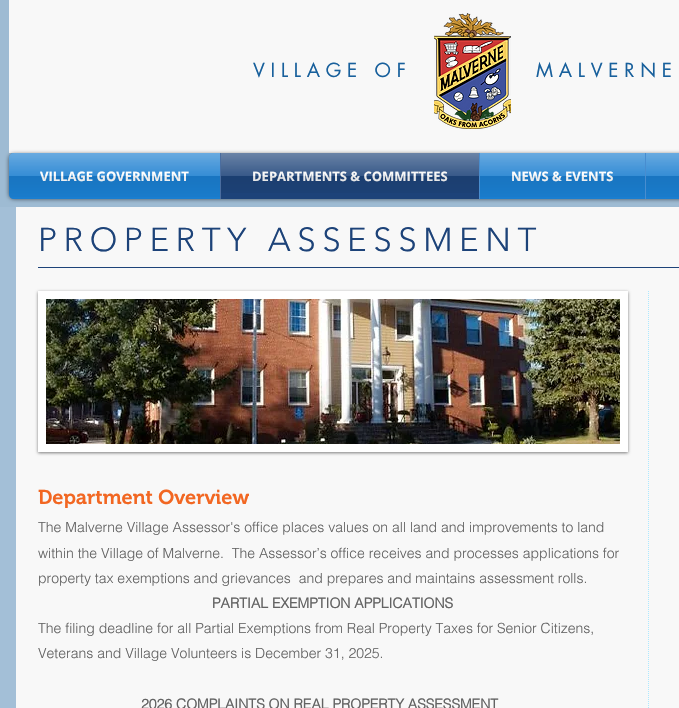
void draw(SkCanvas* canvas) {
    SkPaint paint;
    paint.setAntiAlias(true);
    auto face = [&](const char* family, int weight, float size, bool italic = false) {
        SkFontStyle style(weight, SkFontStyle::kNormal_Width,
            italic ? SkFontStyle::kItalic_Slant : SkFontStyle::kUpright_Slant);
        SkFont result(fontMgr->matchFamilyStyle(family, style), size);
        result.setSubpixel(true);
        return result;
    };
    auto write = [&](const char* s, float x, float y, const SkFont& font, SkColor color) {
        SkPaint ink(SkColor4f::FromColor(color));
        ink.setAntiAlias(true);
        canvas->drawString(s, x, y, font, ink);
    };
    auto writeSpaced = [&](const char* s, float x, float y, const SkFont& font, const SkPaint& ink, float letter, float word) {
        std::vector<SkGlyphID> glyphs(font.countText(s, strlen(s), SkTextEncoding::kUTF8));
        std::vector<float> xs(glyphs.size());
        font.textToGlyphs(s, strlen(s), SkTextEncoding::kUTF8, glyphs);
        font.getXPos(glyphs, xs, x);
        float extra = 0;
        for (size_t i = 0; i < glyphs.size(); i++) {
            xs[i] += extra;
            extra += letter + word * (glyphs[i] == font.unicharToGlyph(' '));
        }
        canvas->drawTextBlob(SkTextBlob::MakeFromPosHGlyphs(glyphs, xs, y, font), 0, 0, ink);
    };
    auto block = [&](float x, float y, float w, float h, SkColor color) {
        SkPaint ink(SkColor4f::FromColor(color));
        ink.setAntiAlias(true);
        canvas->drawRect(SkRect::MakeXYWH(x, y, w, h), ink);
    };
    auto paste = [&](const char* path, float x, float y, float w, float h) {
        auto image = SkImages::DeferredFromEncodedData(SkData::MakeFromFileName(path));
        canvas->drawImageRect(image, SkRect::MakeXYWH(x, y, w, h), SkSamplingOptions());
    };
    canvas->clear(SkColorSetRGB(163, 191, 215));
    block(0, 0, 679, 207, SkColorSetRGB(158, 187, 211));
    block(9, 0, 670, 153, SkColorSetRGB(248, 248, 248));
    auto kFont1 = face("futura", 400, 19);
    paint.setColor(SkColorSetRGB(24, 96, 156));
    writeSpaced("VILLAGE OF", 253, 77, kFont1, paint, 5.75f, 0);
    paste("pic1.png", 434, 13, 77, 116);
    writeSpaced("MALVERNE", 536, 77, kFont1, paint, 5.75f, 0);
    paint.setColor(SkColorSetARGB(153, 0, 0, 0));
    paint.setMaskFilter(SkMaskFilter::MakeBlur(kNormal_SkBlurStyle, 2));
    canvas->drawRoundRect(SkRect::MakeXYWH(9, 154, 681, 45), 5, 5, paint);
    paint.setMaskFilter(nullptr);
    paste("pic2.png", 9, 153, 5, 5);
    paint.setColor(SkColorSetRGB(26, 126, 208));
    canvas->drawPath(SkPathBuilder().moveTo(14, 153).lineTo(220, 153).lineTo(220, 199).lineTo(14, 199).cubicTo(11, 199, 9, 197, 9, 194).lineTo(9, 158).cubicTo(9, 155, 11, 153, 14, 153).close().detach(), paint);
    auto kFont2 = face("Open Sans", 700, 13);
    write("VILLAGE GOVERNMENT", 40, 181, kFont2, SK_ColorWHITE);
    paste("pic3.png", 9, 153, 211, 44);
    block(221, 153, 258, 46, SkColorSetRGB(29, 67, 121));
    block(220, 153, 1, 46, SkColorSetRGB(74, 109, 159));
    write("DEPARTMENTS & COMMITTEES", 252, 181, kFont2, SkColorSetRGB(248, 248, 248));
    paste("pic4.png", 221, 153, 258, 40);
    block(480, 153, 165, 46, SkColorSetRGB(26, 126, 208));
    block(479, 153, 1, 46, SkColorSetRGB(72, 141, 207));
    write("NEWS & EVENTS", 511, 181, kFont2, SK_ColorWHITE);
    paste("pic5.png", 480, 153, 165, 44);
    block(646, 153, 33, 46, SkColorSetRGB(26, 126, 208));
    block(645, 153, 1, 46, SkColorSetRGB(72, 141, 207));
    paste("pic6.png", 646, 153, 33, 44);
    block(16, 207, 663, 501, SkColorSetRGB(248, 248, 248));
    auto kFont3 = face("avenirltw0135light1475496", 300, 33);
    paint.setColor(SkColorSetRGB(29, 67, 121));
    writeSpaced("PROPERTY ASSESSMENT", 38, 251, kFont3, paint, 6.6f, 0);
    block(38, 267, 641, 1, SkColorSetRGB(29, 67, 121));
    paint.setColor(SkColorSetARGB(128, 0, 0, 0));
    paint.setMaskFilter(SkMaskFilter::MakeBlur(kNormal_SkBlurStyle, 1.5f));
    canvas->drawRect(SkRect::MakeXYWH(38, 292, 590, 161), paint);
    paint.setMaskFilter(nullptr);
    block(38, 291, 590, 161, SK_ColorWHITE);
    paste("pic7.png", 46, 299, 574, 145);
    paint.setStyle(SkPaint::kStroke_Style);
    paint.setStrokeWidth(1);
    paint.setColor(SkColorSetRGB(173, 233, 255));
    paint.setPathEffect(SkDashPathEffect::Make({{1, 1}}, 0));
    canvas->drawPath(SkPathBuilder().moveTo(648.5f, 291).lineTo(648.5f, 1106).detach(), paint);
    paint.setPathEffect(nullptr);
    auto kFont4 = face("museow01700", 600, 20);
    write("Department Overview", 38, 504, kFont4, SkColorSetRGB(242, 103, 34));
    auto kFont5 = face("helvetica", 300, 14);
    write("The Malverne Village Assessor's office places values on all land and improvements to land", 38, 532, kFont5, SkColorSetRGB(99, 99, 99));
    write("within the Village of Malverne.  The Assessor’s office receives and processes applications for", 38, 558, kFont5, SkColorSetRGB(99, 99, 99));
    write("property tax exemptions and grievances  and prepares and maintains assessment rolls.", 38, 583, kFont5, SkColorSetRGB(99, 99, 99));
    auto kFont6 = face("helvetica", 700, 14);
    write("PARTIAL EXEMPTION APPLICATIONS", 212, 608, kFont6, SkColorSetRGB(99, 99, 99));
    write("The filing deadline for all Partial Exemptions from Real Property Taxes for Senior Citizens,", 38, 633, kFont5, SkColorSetRGB(99, 99, 99));
    write("Veterans and Village Volunteers is December 31, 2025.", 38, 658, kFont5, SkColorSetRGB(99, 99, 99));
    write("2026 COMPLAINTS ON REAL PROPERTY ASSESSMENT", 141, 709, kFont6, SkColorSetRGB(99, 99, 99));
}
